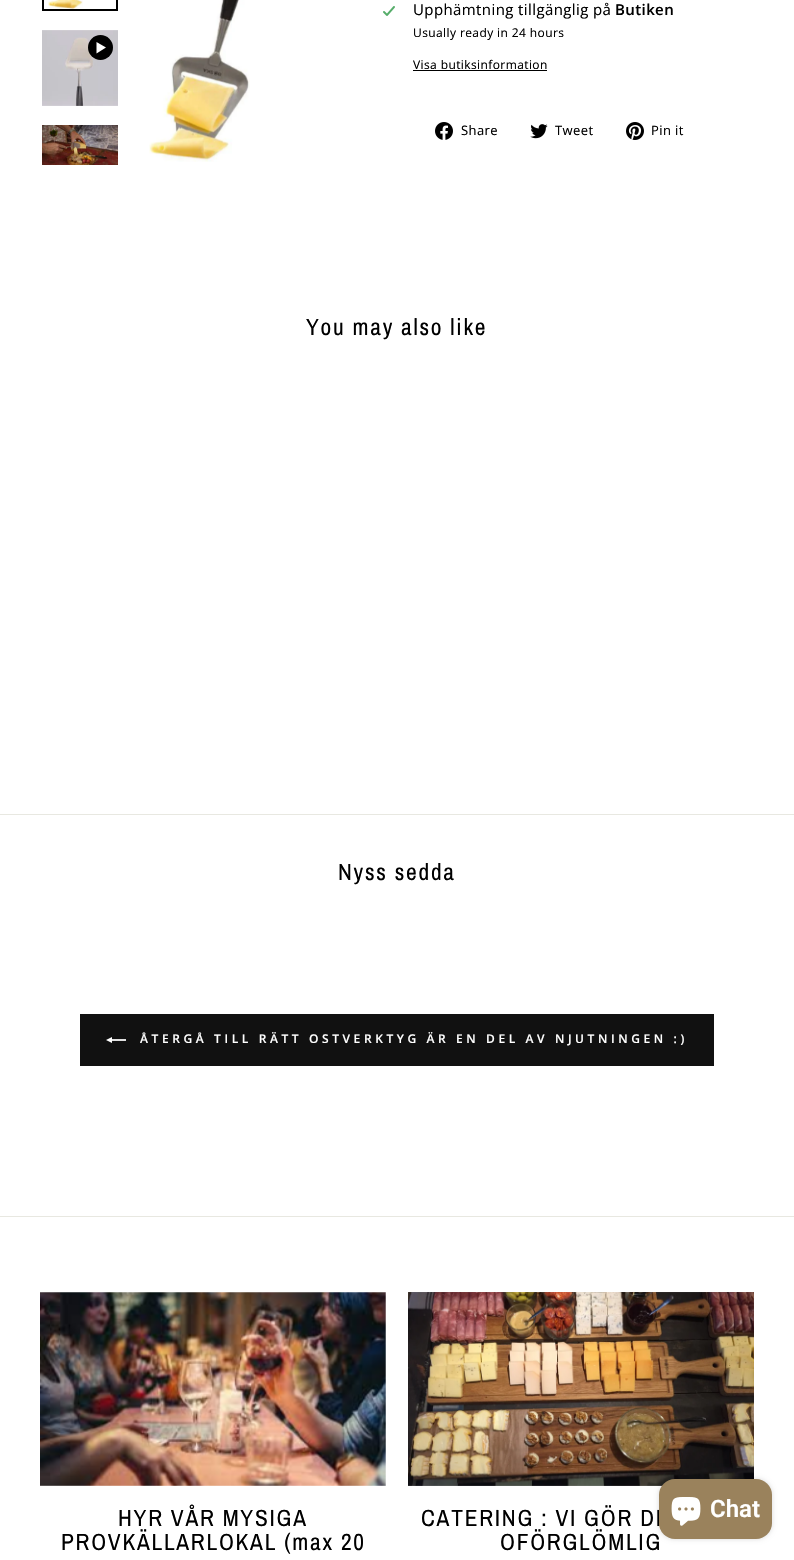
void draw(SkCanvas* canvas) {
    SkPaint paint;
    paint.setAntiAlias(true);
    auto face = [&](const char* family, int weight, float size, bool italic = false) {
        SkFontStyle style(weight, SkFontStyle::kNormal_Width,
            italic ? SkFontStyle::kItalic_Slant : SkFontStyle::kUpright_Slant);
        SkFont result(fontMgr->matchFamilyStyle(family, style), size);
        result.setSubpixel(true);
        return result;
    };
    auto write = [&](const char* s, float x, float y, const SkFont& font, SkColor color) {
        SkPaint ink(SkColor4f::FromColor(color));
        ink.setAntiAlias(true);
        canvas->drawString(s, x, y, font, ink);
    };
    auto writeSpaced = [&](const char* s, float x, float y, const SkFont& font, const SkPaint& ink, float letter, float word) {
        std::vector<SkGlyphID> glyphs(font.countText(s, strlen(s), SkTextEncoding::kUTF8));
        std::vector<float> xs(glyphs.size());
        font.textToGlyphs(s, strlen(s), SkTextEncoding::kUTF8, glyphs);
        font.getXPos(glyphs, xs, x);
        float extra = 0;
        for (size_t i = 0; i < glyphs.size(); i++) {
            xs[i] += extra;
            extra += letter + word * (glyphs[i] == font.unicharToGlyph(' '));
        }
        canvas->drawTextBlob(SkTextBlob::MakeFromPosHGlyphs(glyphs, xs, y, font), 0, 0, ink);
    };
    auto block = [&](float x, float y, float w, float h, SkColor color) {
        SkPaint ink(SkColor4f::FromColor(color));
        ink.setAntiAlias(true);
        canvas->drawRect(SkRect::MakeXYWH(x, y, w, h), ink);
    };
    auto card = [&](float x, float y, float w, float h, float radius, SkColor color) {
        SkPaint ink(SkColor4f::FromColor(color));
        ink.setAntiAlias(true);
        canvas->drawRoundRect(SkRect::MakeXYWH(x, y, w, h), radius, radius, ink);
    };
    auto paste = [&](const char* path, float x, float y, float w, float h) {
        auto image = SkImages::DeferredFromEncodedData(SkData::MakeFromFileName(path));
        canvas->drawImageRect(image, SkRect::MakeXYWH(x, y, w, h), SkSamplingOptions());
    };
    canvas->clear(SK_ColorWHITE);
    paste("pic1.png", 48, 0, 35, 9);
    paint.setStyle(SkPaint::kStroke_Style);
    paint.setStrokeWidth(2);
    paint.setColor(SK_ColorBLACK);
    canvas->drawRect(SkRect::MakeXYWH(43, -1, 74, 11), paint);
    paste("pic2.png", 42, 30, 76, 76);
    paint.setStyle(SkPaint::kFill_Style);
    canvas->drawCircle(100.5f, 47.5f, 12.5f, paint);
    paint.setColor(SK_ColorWHITE);
    canvas->drawPath(SkPathBuilder().moveTo(96.5f, 42).lineTo(96.5f, 53.5f).lineTo(106, 47.5f).close().detach(), paint);
    paste("pic3.png", 42, 125, 76, 40);
    paste("pic4.png", 149, 0, 101, 162);
    paste("pic5.png", 383, 6, 12, 10);
    auto kFont1 = face("Open Sans", 400, 15);
    paint.setColor(SK_ColorBLACK);
    writeSpaced("Upphämtning tillgänglig på", 413, 15, kFont1, paint, 0.4f, 0);
    auto kFont2 = face("Open Sans", 600, 15);
    writeSpaced("Butiken", 615, 15, kFont2, paint, 0.4f, 0);
    auto kFont3 = face("Open Sans", 400, 12);
    writeSpaced("Usually ready in 24 hours", 413, 37, kFont3, paint, 0.4f, 0);
    writeSpaced("Visa butiksinformation", 413, 69, kFont3, paint, 0.4f, 0);
    block(413, 70, 134, 1, SK_ColorBLACK);
    paste("pic6.png", 435, 122, 18, 18);
    auto kFont4 = face("Open Sans", 400, 13);
    writeSpaced("Share", 461, 135, kFont4, paint, 0.4f, 0);
    paste("pic7.png", 530, 124, 18, 15);
    writeSpaced("Tweet", 555, 135, kFont4, paint, 0.4f, 0);
    paste("pic8.png", 626, 122, 18, 18);
    writeSpaced("Pin it", 651, 135, kFont4, paint, 0.4f, 0);
    auto kFont5 = face("Archivo Narrow", 400, 23.4f);
    writeSpaced("You may also like", 306, 335, kFont5, paint, 1.75f, 0);
    block(0, 814, 794, 1, SkColorSetRGB(232, 232, 225));
    writeSpaced("Nyss sedda", 338, 880, kFont5, paint, 1.75f, 0);
    block(80, 1014, 634, 52, SkColorSetRGB(17, 17, 17));
    paste("pic9.png", 106, 1037, 20, 6);
    auto kFont6 = face("Open Sans", 600, 12);
    paint.setColor(SK_ColorWHITE);
    writeSpaced("ÅTERGÅ TILL RÄTT OSTVERKTYG ÄR EN DEL AV NJUTNINGEN :)", 140, 1043, kFont6, paint, 3.6f, 0);
    block(0, 1216, 794, 1, SkColorSetRGB(232, 232, 225));
    paste("pic10.png", 40, 1292, 346, 194);
    paint.setColor(SK_ColorBLACK);
    writeSpaced("HYR VÅR MYSIGA", 118, 1526, kFont5, paint, 1.75f, 0);
    writeSpaced("PROVKÄLLARLOKAL (max 20", 61, 1550, kFont5, paint, 1.75f, 0);
    paste("pic11.png", 408, 1292, 346, 194);
    writeSpaced("CATERING : VI GÖR DI", 421, 1526, kFont5, paint, 1.75f, 0);
    writeSpaced("OFÖRGLÖMLIG", 500, 1550, kFont5, paint, 1.75f, 0);
    paint.setColor(SkColorSetARGB(38, 0, 0, 0));
    paint.setMaskFilter(SkMaskFilter::MakeBlur(kNormal_SkBlurStyle, 2.5f));
    canvas->drawRoundRect(SkRect::MakeXYWH(659, 1479, 113, 60), 16, 16, paint);
    paint.setMaskFilter(nullptr);
    card(659, 1479, 113, 60, 16, SkColorSetRGB(154, 130, 92));
    paste("pic12.png", 671, 1497, 30, 29);
    auto kFont7 = face("Roboto", 600, 24);
    write("Chat", 710, 1517, kFont7, SK_ColorWHITE);
}
